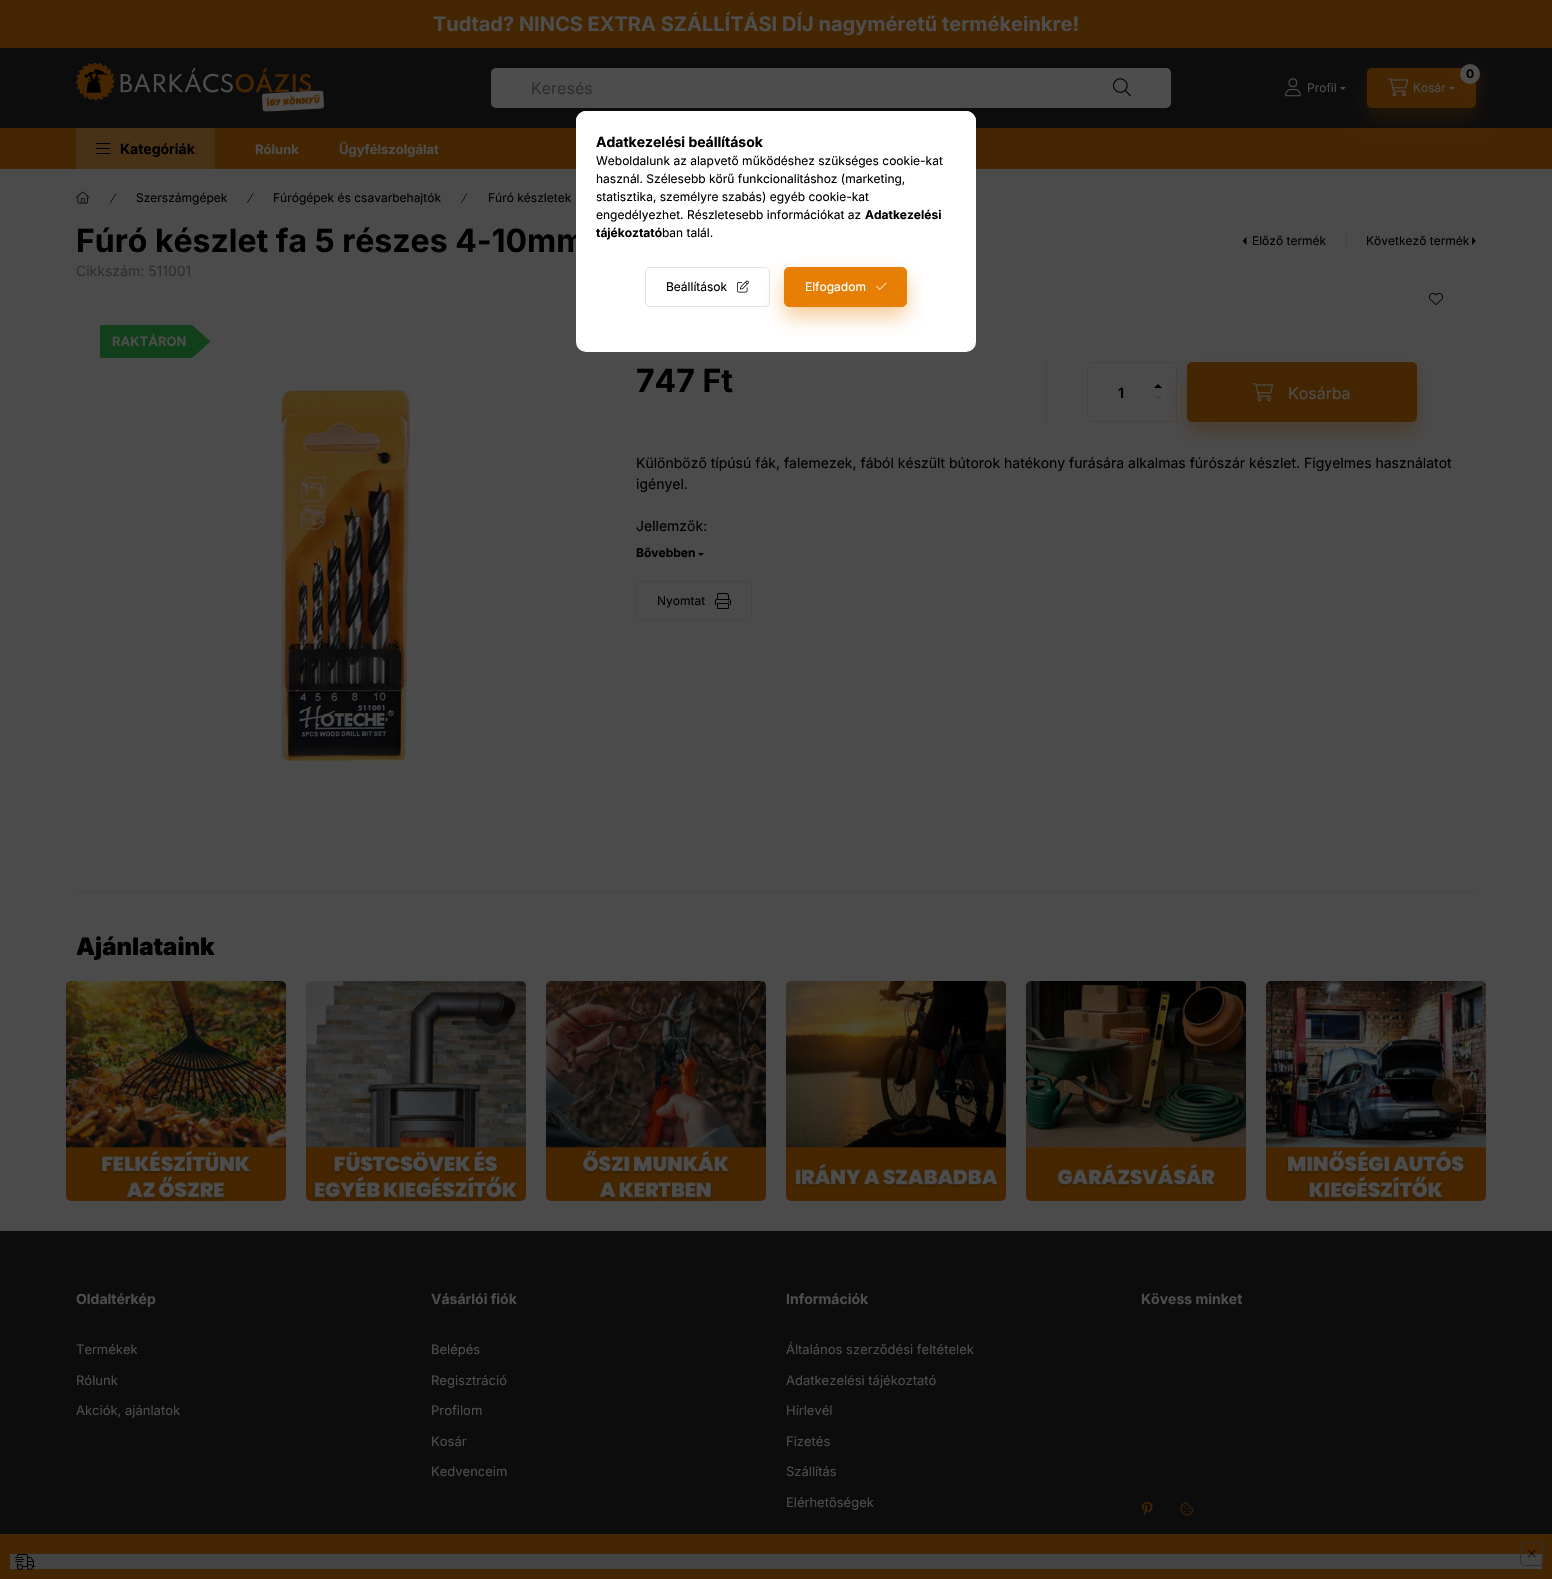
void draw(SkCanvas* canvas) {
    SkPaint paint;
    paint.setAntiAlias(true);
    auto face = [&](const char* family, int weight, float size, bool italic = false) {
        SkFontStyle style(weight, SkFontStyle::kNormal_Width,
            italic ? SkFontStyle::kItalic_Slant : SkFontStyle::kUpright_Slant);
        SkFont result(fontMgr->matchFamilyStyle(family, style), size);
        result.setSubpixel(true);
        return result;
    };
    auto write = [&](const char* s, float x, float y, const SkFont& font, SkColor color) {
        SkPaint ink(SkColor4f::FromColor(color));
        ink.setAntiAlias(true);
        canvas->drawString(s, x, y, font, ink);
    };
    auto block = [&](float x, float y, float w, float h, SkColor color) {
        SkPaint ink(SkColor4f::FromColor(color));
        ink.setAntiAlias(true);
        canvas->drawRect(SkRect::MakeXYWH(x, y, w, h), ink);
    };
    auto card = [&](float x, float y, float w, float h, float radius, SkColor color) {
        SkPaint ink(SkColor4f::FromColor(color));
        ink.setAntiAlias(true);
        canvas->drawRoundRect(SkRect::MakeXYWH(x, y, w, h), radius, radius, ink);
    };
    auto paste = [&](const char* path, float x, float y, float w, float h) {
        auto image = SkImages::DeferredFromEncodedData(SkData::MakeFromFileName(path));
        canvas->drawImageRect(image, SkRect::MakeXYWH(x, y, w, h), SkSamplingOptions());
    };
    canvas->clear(SkColorSetRGB(75, 75, 75));
    block(0, 48, 1552, 80, SkColorSetRGB(12, 12, 12));
    block(0, 128, 1552, 41, SkColorSetRGB(69, 38, 2));
    paint.setColor(SkColorSetARGB(102, 69, 38, 2));
    paint.setMaskFilter(SkMaskFilter::MakeBlur(kNormal_SkBlurStyle, 10));
    canvas->drawRoundRect(SkRect::MakeXYWH(1367, 78, 109, 40), 5, 5, paint);
    paint.setMaskFilter(nullptr);
    block(0, 0, 1552, 48, SkColorSetRGB(69, 38, 2));
    auto kFont1 = face("Inter", 700, 20);
    write("Tudtad? NINCS EXTRA SZÁLLÍTÁSI DÍJ nagyméretű termékeinkre!", 433, 31, kFont1, SkColorSetRGB(77, 77, 77));
    paste("pic1.png", 76, 63, 248, 49);
    card(491, 68, 680, 40, 5, SkColorSetRGB(77, 77, 77));
    auto kFont2 = face("Inter", 400, 16);
    write("Keresés", 531, 94, kFont2, SkColorSetRGB(46, 46, 46));
    paste("pic2.png", 1113, 78, 18, 19);
    paste("pic3.png", 1285, 78, 16, 19);
    auto kFont3 = face("Inter", 400, 12);
    write("Profil", 1307, 92, kFont3, SkColorSetRGB(77, 77, 77));
    paint.setColor(SkColorSetRGB(77, 77, 77));
    canvas->drawPath(SkPathBuilder().moveTo(1340, 87).lineTo(1346, 87).lineTo(1343, 90).close().detach(), paint);
    card(1367, 68, 109, 40, 5, SkColorSetRGB(69, 38, 2));
    paint.setColor(SkColorSetARGB(102, 69, 38, 2));
    paint.setMaskFilter(SkMaskFilter::MakeBlur(kNormal_SkBlurStyle, 5));
    canvas->drawRoundRect(SkRect::MakeXYWH(1460, 69, 20, 20), 10, 10, paint);
    paint.setMaskFilter(nullptr);
    paint.setColor(SkColorSetRGB(77, 77, 77));
    canvas->drawCircle(1470, 74, 10, paint);
    auto kFont4 = face("Inter", 700, 12);
    write("0", 1466, 78, kFont4, SK_ColorBLACK);
    paste("pic4.png", 1388, 78, 21, 19);
    write("Kosár", 1413, 92, kFont3, SkColorSetRGB(77, 77, 77));
    canvas->drawPath(SkPathBuilder().moveTo(1449, 87).lineTo(1455, 87).lineTo(1452, 90).close().detach(), paint);
    block(76, 128, 139, 41, SkColorSetRGB(71, 50, 24));
    block(96, 143, 14, 1, SK_ColorBLACK);
    block(96, 148, 14, 1, SK_ColorBLACK);
    block(96, 153, 14, 1, SK_ColorBLACK);
    auto kFont5 = face("Inter", 700, 14);
    write("Kategóriák", 120, 154, kFont5, SK_ColorBLACK);
    auto kFont6 = face("Inter", 700, 13);
    write("Rólunk", 255, 154, kFont6, SkColorSetRGB(77, 77, 77));
    write("Ügyfélszolgálat", 339, 154, kFont6, SkColorSetRGB(77, 77, 77));
    paste("pic5.png", 76, 191, 14, 13);
    paste("pic6.png", 110, 193, 7, 11);
    write("Szerszámgépek", 136, 202, kFont3, SK_ColorBLACK);
    paste("pic6.png", 247, 193, 7, 11);
    write("Fúrógépek és csavarbehajtók", 273, 202, kFont3, SK_ColorBLACK);
    paste("pic6.png", 461, 193, 7, 11);
    write("Fúró készletek", 488, 202, kFont3, SK_ColorBLACK);
    auto kFont7 = face("Inter", 700, 32);
    write("Fúró készlet fa 5 részes 4-10mm", 76, 252, kFont7, SK_ColorBLACK);
    paint.setColor(SK_ColorBLACK);
    canvas->drawPath(SkPathBuilder().moveTo(1246.5f, 245).lineTo(1246.5f, 237).lineTo(1242.5f, 241).close().detach(), paint);
    write("Előző termék", 1252, 245, kFont3, SK_ColorBLACK);
    block(1346, 232, 1, 18, SkColorSetRGB(68, 68, 68));
    write("Következő termék", 1366, 245, kFont3, SK_ColorBLACK);
    canvas->drawPath(SkPathBuilder().moveTo(1472, 245).lineTo(1472, 237).lineTo(1476, 241).close().detach(), paint);
    auto kFont8 = face("Inter", 400, 14);
    write("Cikkszám: 511001", 76, 276, kFont8, SkColorSetRGB(46, 46, 46));
    paste("pic7.png", 1429, 292, 14, 13);
    paint.setColor(SkColorSetRGB(16, 63, 25));
    canvas->drawPath(SkPathBuilder().moveTo(100, 326).lineTo(101, 325).lineTo(192, 325).lineTo(210, 341).lineTo(210, 342).lineTo(192, 358).lineTo(101, 358).lineTo(100, 357).close().detach(), paint);
    write("RAKTÁRON", 112, 346, kFont6, SkColorSetRGB(77, 77, 77));
    paste("pic8.png", 280, 388, 136, 374);
    write("747 Ft", 636, 392, kFont7, SK_ColorBLACK);
    block(1046, 362, 1, 60, SkColorSetRGB(68, 68, 68));
    paint.setStyle(SkPaint::kStroke_Style);
    paint.setStrokeWidth(1);
    paint.setColor(SkColorSetRGB(68, 68, 68));
    canvas->drawRoundRect(SkRect::MakeXYWH(1087.5f, 362.5f, 89, 59), 4.5f, 4.5f, paint);
    write("1", 1118, 398, kFont5, SK_ColorBLACK);
    paint.setStyle(SkPaint::kFill_Style);
    paint.setColor(SK_ColorBLACK);
    canvas->drawPath(SkPathBuilder().moveTo(1162, 388).lineTo(1154, 388).lineTo(1158, 384).close().detach(), paint);
    paint.setColor(SkColorSetRGB(66, 66, 66));
    canvas->drawPath(SkPathBuilder().moveTo(1154, 396).lineTo(1162, 396).lineTo(1158, 400).close().detach(), paint);
    paint.setColor(SkColorSetARGB(102, 69, 38, 2));
    paint.setMaskFilter(SkMaskFilter::MakeBlur(kNormal_SkBlurStyle, 10));
    canvas->drawRoundRect(SkRect::MakeXYWH(1187, 372, 230, 60), 5, 5, paint);
    paint.setMaskFilter(nullptr);
    card(1187, 362, 230, 60, 5, SkColorSetRGB(69, 38, 2));
    paste("pic4.png", 1253, 383, 21, 19);
    write("Kosárba", 1288, 399, kFont2, SkColorSetRGB(77, 77, 77));
    write("Különböző típúsú fák, falemezek, fából készült bútorok hatékony furására alkalmas fúrószár készlet. Figyelmes használatot", 636, 468, kFont8, SK_ColorBLACK);
    write("igényel.", 636, 489, kFont8, SK_ColorBLACK);
    write("Jellemzők:", 636, 531, kFont8, SK_ColorBLACK);
    write("Bővebben", 636, 557, kFont4, SK_ColorBLACK);
    paint.setColor(SK_ColorBLACK);
    canvas->drawPath(SkPathBuilder().moveTo(698, 553).lineTo(704, 553).lineTo(701, 556).close().detach(), paint);
    paint.setStyle(SkPaint::kStroke_Style);
    paint.setColor(SkColorSetRGB(68, 68, 68));
    canvas->drawRoundRect(SkRect::MakeXYWH(636.5f, 581.5f, 115, 39), 4.5f, 4.5f, paint);
    write("Nyomtat", 657, 605, kFont3, SK_ColorBLACK);
    paste("pic9.png", 715, 593, 16, 16);
    block(76, 891, 1400, 1, SkColorSetRGB(68, 68, 68));
    auto kFont9 = face("Inter", 900, 24);
    write("Ajánlataink", 76, 955, kFont9, SK_ColorBLACK);
    paste("pic10.png", 66, 981, 220, 220);
    paste("pic11.png", 306, 981, 220, 220);
    paste("pic12.png", 546, 981, 220, 220);
    paste("pic13.png", 786, 981, 220, 220);
    paste("pic14.png", 1026, 981, 220, 220);
    paste("pic15.png", 1266, 981, 220, 220);
    paint.setStyle(SkPaint::kFill_Style);
    paint.setColor(SkColorSetARGB(77, 69, 38, 2));
    canvas->drawCircle(98, 1091, 22, paint);
    paint.setColor(SkColorSetARGB(77, 68, 68, 68));
    canvas->drawPath(SkPathBuilder().moveTo(87.5f, 1091).lineTo(101, 1104.5f).lineTo(103.5f, 1102).lineTo(93, 1091).lineTo(103.5f, 1080.5f).lineTo(101, 1078).close().detach(), paint);
    paint.setColor(SkColorSetARGB(77, 69, 38, 2));
    canvas->drawCircle(1454, 1091, 22, paint);
    paint.setColor(SkColorSetARGB(77, 68, 68, 68));
    canvas->drawPath(SkPathBuilder().moveTo(1465, 1091).lineTo(1451.5f, 1078).lineTo(1449, 1080.5f).lineTo(1459.5f, 1091).lineTo(1449, 1102).lineTo(1451.5f, 1104.5f).close().detach(), paint);
    block(0, 1231, 1552, 303, SkColorSetRGB(12, 12, 12));
    write("Oldaltérkép", 76, 1304, kFont5, SkColorSetRGB(77, 77, 77));
    auto kFont10 = face("Inter", 400, 13);
    write("Termékek", 76, 1354, kFont10, SkColorSetRGB(77, 77, 77));
    write("Rólunk", 76, 1385, kFont10, SkColorSetRGB(77, 77, 77));
    write("Akciók, ajánlatok", 76, 1415, kFont10, SkColorSetRGB(77, 77, 77));
    write("Vásárlói fiók", 431, 1304, kFont5, SkColorSetRGB(77, 77, 77));
    write("Belépés", 431, 1354, kFont10, SkColorSetRGB(77, 77, 77));
    write("Regisztráció", 431, 1385, kFont10, SkColorSetRGB(77, 77, 77));
    write("Profilom", 431, 1415, kFont10, SkColorSetRGB(77, 77, 77));
    write("Kosár", 431, 1446, kFont10, SkColorSetRGB(77, 77, 77));
    write("Kedvenceim", 431, 1476, kFont10, SkColorSetRGB(77, 77, 77));
    write("Információk", 786, 1304, kFont5, SkColorSetRGB(77, 77, 77));
    write("Általános szerződési feltételek", 786, 1354, kFont10, SkColorSetRGB(77, 77, 77));
    write("Adatkezelési tájékoztató", 786, 1385, kFont10, SkColorSetRGB(77, 77, 77));
    write("Hírlevél", 786, 1415, kFont10, SkColorSetRGB(77, 77, 77));
    write("Fizetés", 786, 1446, kFont10, SkColorSetRGB(77, 77, 77));
    write("Szállítás", 786, 1476, kFont10, SkColorSetRGB(77, 77, 77));
    write("Elérhetőségek", 786, 1507, kFont10, SkColorSetRGB(77, 77, 77));
    write("Kövess minket", 1141, 1304, kFont5, SkColorSetRGB(77, 77, 77));
    paste("pic16.png", 1142, 1501, 11, 15);
    paste("pic17.png", 1180, 1502, 14, 14);
    card(576, 111, 400, 241, 10, SK_ColorWHITE);
    paint.setColor(SK_ColorWHITE);
    canvas->drawPath(SkPathBuilder().moveTo(586, 111).lineTo(966, 111).cubicTo(971.5f, 111, 976, 115.5f, 976, 121).lineTo(976, 332).lineTo(576, 332).lineTo(576, 121).cubicTo(576, 115.5f, 580.5f, 111, 586, 111).close().detach(), paint);
    write("Adatkezelési beállítások", 596, 147, kFont5, SK_ColorBLACK);
    write("Weboldalunk az alapvető működéshez szükséges cookie-kat", 596, 165, kFont3, SK_ColorBLACK);
    write("használ. Szélesebb körű funkcionalitáshoz (marketing,", 596, 183, kFont3, SK_ColorBLACK);
    write("statisztika, személyre szabás) egyéb cookie-kat", 596, 201, kFont3, SK_ColorBLACK);
    write("engedélyezhet. Részletesebb információkat az", 596, 219, kFont3, SK_ColorBLACK);
    write("Adatkezelési", 865, 219, kFont4, SK_ColorBLACK);
    write("tájékoztató", 596, 237, kFont4, SK_ColorBLACK);
    write("ban talál.", 662, 237, kFont3, SK_ColorBLACK);
    paint.setStyle(SkPaint::kStroke_Style);
    paint.setColor(SkColorSetRGB(225, 225, 225));
    canvas->drawRoundRect(SkRect::MakeXYWH(645.5f, 267.5f, 124, 39), 4.5f, 4.5f, paint);
    write("Beállítások", 666, 291, kFont3, SK_ColorBLACK);
    paste("pic18.png", 737, 280, 12, 13);
    paint.setStyle(SkPaint::kFill_Style);
    paint.setColor(SkColorSetARGB(102, 231, 127, 6));
    paint.setMaskFilter(SkMaskFilter::MakeBlur(kNormal_SkBlurStyle, 10));
    canvas->drawRoundRect(SkRect::MakeXYWH(784, 277, 123, 40), 5, 5, paint);
    paint.setMaskFilter(nullptr);
    paint.setColor(SkColorSetRGB(231, 127, 6));
    canvas->drawRoundRect(SkRect::MakeXYWH(784.5f, 267.5f, 122, 39), 4.5f, 4.5f, paint);
    paint.setStyle(SkPaint::kStroke_Style);
    canvas->drawRoundRect(SkRect::MakeXYWH(784.5f, 267.5f, 122, 39), 4.5f, 4.5f, paint);
    write("Elfogadom", 805, 291, kFont3, SK_ColorWHITE);
    paste("pic19.png", 876, 282, 11, 8);
    block(0, 1534, 1552, 45, SkColorSetRGB(69, 38, 2));
    block(10, 1554, 1532, 15, SkColorSetRGB(68, 68, 68));
    paint.setColor(SkColorSetRGB(46, 46, 46));
    canvas->drawRoundRect(SkRect::MakeXYWH(1520.5f, 1542.5f, 23, 23), 4.5f, 4.5f, paint);
    paste("pic20.png", 1528, 1549, 8, 9);
    paste("pic21.png", 15, 1554, 20, 16);
}
